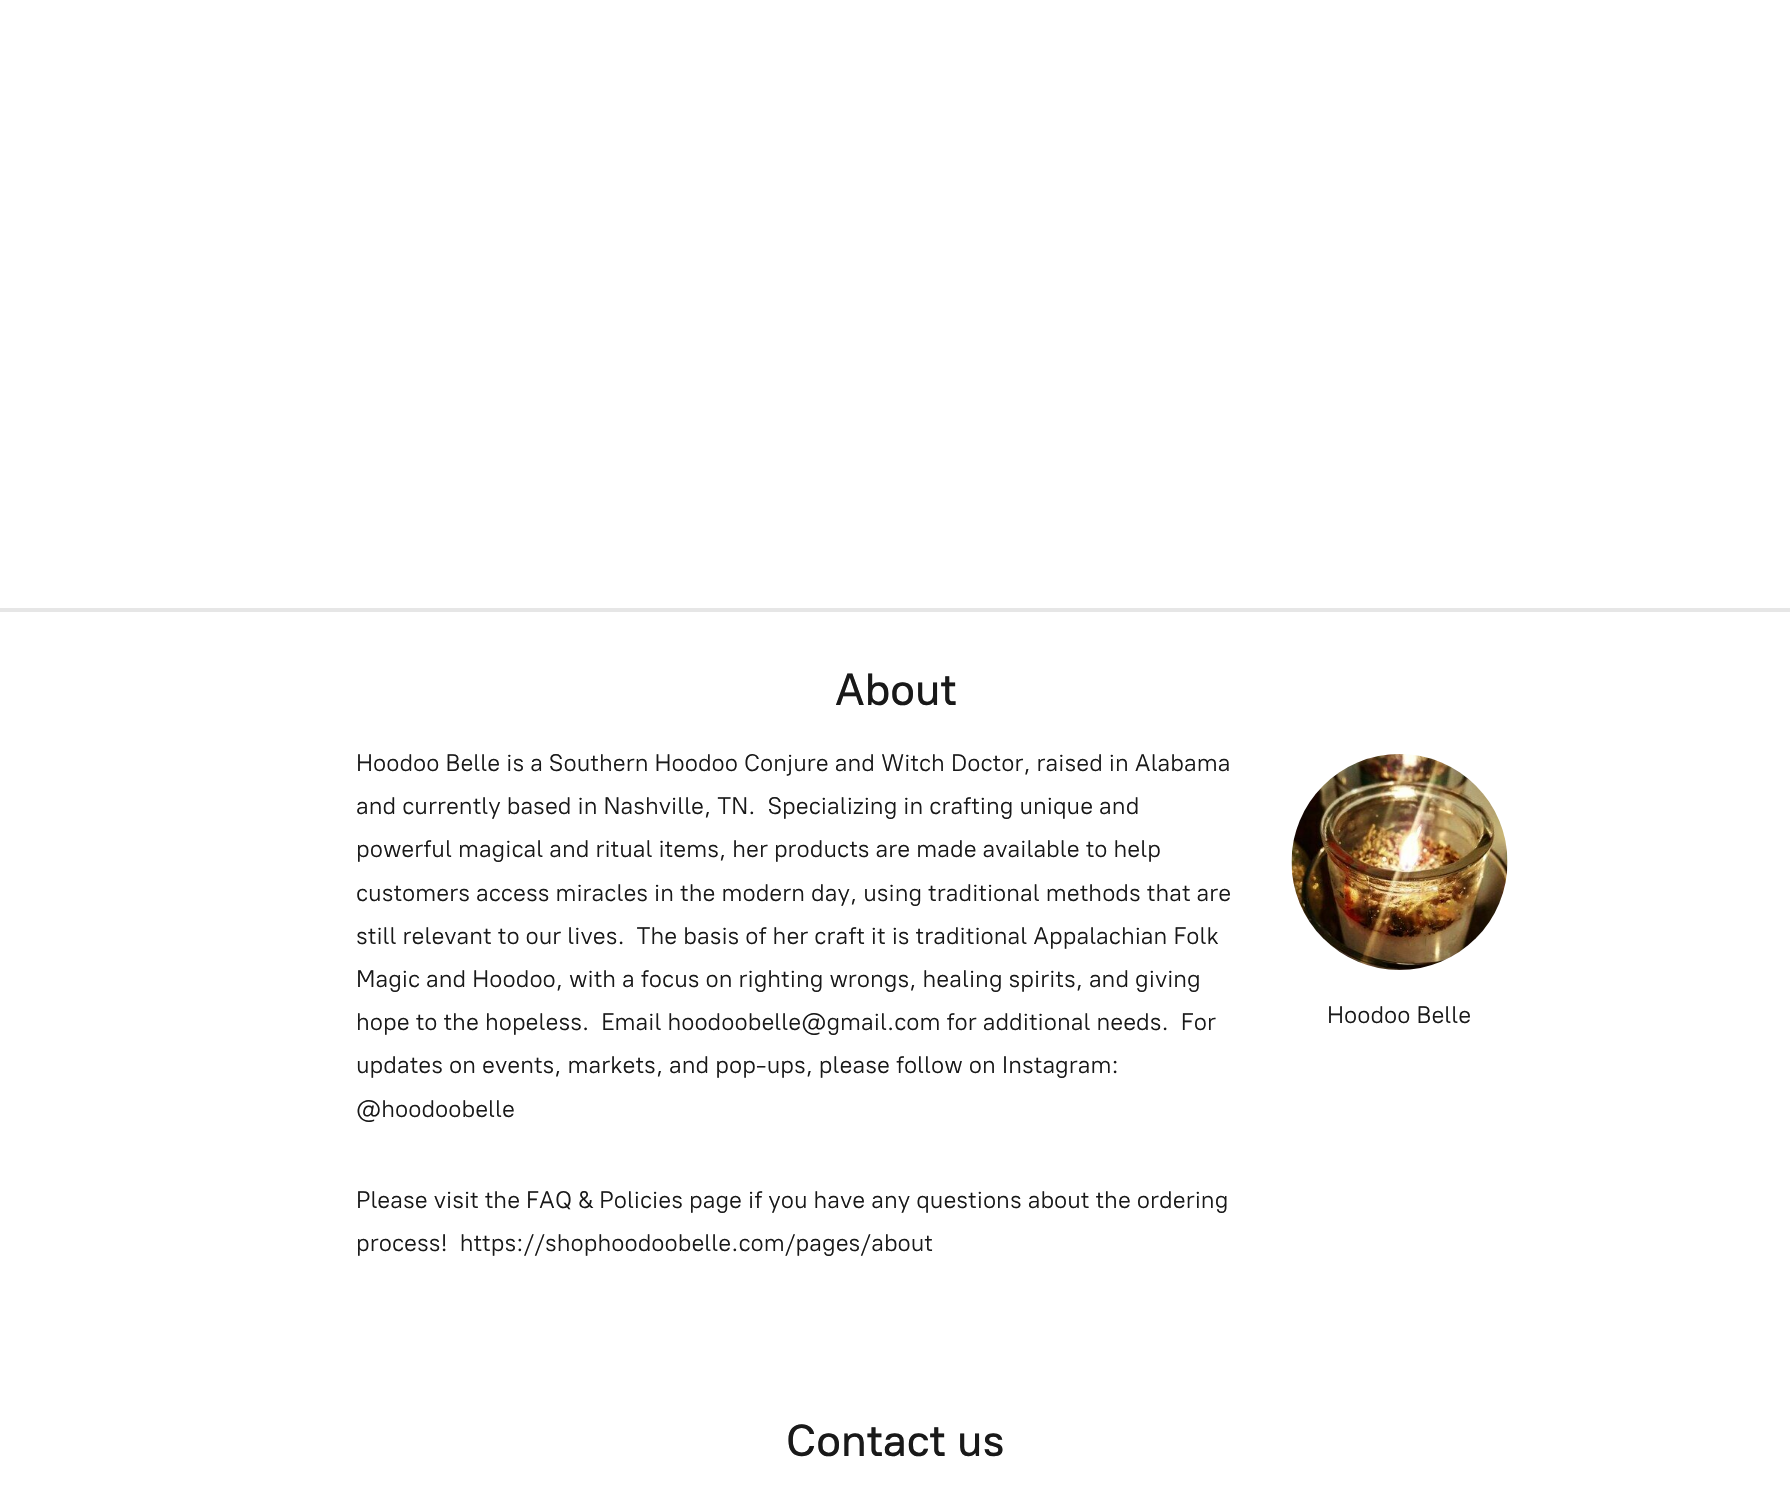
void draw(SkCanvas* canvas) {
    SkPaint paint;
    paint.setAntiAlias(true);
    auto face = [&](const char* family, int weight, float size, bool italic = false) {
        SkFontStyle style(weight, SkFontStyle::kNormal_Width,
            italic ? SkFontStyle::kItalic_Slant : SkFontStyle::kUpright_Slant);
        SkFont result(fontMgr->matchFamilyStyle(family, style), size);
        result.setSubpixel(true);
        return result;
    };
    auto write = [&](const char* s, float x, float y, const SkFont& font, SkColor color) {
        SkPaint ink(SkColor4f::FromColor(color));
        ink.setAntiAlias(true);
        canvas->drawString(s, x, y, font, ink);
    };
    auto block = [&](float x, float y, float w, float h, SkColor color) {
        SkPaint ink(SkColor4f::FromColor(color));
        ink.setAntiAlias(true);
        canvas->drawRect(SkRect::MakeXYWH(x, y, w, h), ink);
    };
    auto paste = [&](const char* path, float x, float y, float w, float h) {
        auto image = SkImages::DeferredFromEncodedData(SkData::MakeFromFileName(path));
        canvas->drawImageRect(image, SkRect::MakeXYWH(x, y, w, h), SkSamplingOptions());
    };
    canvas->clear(SK_ColorWHITE);
    block(0, 608, 1790, 4, SkColorSetRGB(230, 230, 230));
    auto kFont1 = face("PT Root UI", 500, 45);
    write("About", 835, 705, kFont1, SkColorSetRGB(25, 25, 25));
    auto kFont2 = face("PT Root UI", 400, 24);
    write("Hoodoo Belle is a Southern Hoodoo Conjure and Witch Doctor, raised in Alabama", 356, 771, kFont2, SkColorSetRGB(25, 25, 25));
    write("and currently based in Nashville, TN.  Specializing in crafting unique and", 356, 814, kFont2, SkColorSetRGB(25, 25, 25));
    write("powerful magical and ritual items, her products are made available to help", 356, 857, kFont2, SkColorSetRGB(25, 25, 25));
    write("customers access miracles in the modern day, using traditional methods that are", 356, 901, kFont2, SkColorSetRGB(25, 25, 25));
    write("still relevant to our lives.  The basis of her craft it is traditional Appalachian Folk", 356, 944, kFont2, SkColorSetRGB(25, 25, 25));
    write("Magic and Hoodoo, with a focus on righting wrongs, healing spirits, and giving", 356, 987, kFont2, SkColorSetRGB(25, 25, 25));
    write("hope to the hopeless.  Email hoodoobelle@gmail.com for additional needs.  For", 356, 1030, kFont2, SkColorSetRGB(25, 25, 25));
    write("updates on events, markets, and pop-ups, please follow on Instagram:", 356, 1073, kFont2, SkColorSetRGB(25, 25, 25));
    write("@hoodoobelle", 356, 1117, kFont2, SkColorSetRGB(25, 25, 25));
    write("Please visit the FAQ & Policies page if you have any questions about the ordering", 356, 1208, kFont2, SkColorSetRGB(25, 25, 25));
    write("process!  https://shophoodoobelle.com/pages/about", 356, 1251, kFont2, SkColorSetRGB(25, 25, 25));
    paste("pic1.png", 1291, 754, 217, 216);
    write("Hoodoo Belle", 1327, 1023, kFont2, SkColorSetRGB(25, 25, 25));
    write("Contact us", 786, 1456, kFont1, SkColorSetRGB(25, 25, 25));
}
